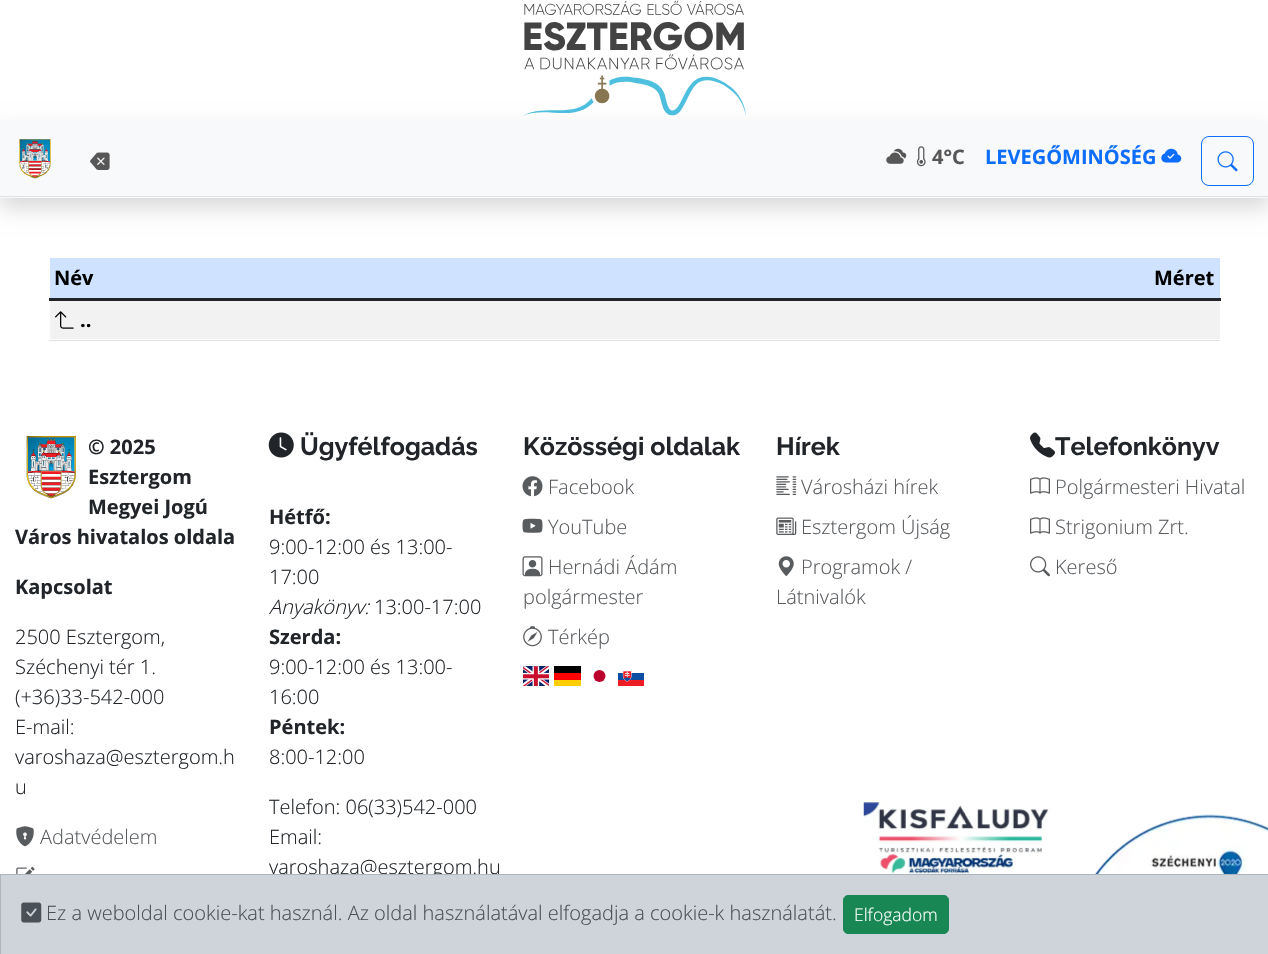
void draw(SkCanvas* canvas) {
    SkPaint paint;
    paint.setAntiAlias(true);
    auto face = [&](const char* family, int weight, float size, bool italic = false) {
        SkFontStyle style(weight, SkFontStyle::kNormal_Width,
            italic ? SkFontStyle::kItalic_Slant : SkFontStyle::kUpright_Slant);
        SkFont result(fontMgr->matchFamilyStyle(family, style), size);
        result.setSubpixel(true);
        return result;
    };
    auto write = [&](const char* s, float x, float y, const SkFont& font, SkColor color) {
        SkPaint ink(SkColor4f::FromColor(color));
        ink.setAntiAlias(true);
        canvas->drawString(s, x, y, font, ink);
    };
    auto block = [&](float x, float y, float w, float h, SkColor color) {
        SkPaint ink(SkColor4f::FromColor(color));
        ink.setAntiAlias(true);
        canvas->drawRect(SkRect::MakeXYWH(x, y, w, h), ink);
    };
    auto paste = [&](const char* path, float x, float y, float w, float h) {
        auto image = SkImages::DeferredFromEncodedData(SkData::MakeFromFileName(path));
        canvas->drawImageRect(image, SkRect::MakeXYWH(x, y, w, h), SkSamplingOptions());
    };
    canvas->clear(SK_ColorWHITE);
    paste("pic1.png", 523, 0, 223, 116);
    paint.setColor(SkColorSetARGB(38, 0, 0, 0));
    paint.setMaskFilter(SkMaskFilter::MakeBlur(kNormal_SkBlurStyle, 10));
    canvas->drawRect(SkRect::MakeXYWH(0, 131, 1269, 77), paint);
    paint.setMaskFilter(nullptr);
    block(0, 121, 1268, 77, SkColorSetRGB(248, 249, 250));
    block(0, 196, 1268, 1, SkColorSetRGB(222, 226, 230));
    paste("pic2.png", 19, 139, 32, 40);
    paste("pic3.png", 90, 152, 20, 18);
    paste("pic4.png", 886, 148, 21, 16);
    paste("pic5.png", 916, 146, 10, 21);
    auto kFont1 = face("Open Sans", 700, 20);
    write("4°C", 932, 164, kFont1, SkColorSetRGB(87, 87, 88));
    write("LEVEGŐMINŐSÉG", 985, 164, kFont1, SkColorSetRGB(13, 110, 253));
    paste("pic6.png", 1161, 148, 21, 15);
    paint.setStyle(SkPaint::kStroke_Style);
    paint.setStrokeWidth(1);
    paint.setColor(SkColorSetRGB(13, 110, 253));
    canvas->drawRoundRect(SkRect::MakeXYWH(1201.5f, 136.5f, 52, 49), 7.5f, 7.5f, paint);
    paste("pic7.png", 1217, 151, 21, 21);
    block(50, 258, 1170, 40, SkColorSetRGB(207, 226, 255));
    write("Név", 54, 285, kFont1, SK_ColorBLACK);
    write("Méret", 1154, 285, kFont1, SK_ColorBLACK);
    block(49, 298, 1172, 3, SkColorSetRGB(33, 37, 41));
    block(50, 301, 1170, 38, SkColorSetRGB(242, 242, 242));
    paste("pic8.png", 55, 311, 19, 18);
    write("..", 80, 327, kFont1, SK_ColorBLACK);
    block(49, 340, 1171, 1, SkColorSetRGB(222, 226, 230));
    paste("pic9.png", 26, 436, 50, 63);
    write("© 2025", 88, 454, kFont1, SkColorSetRGB(33, 37, 41));
    write("Esztergom", 88, 484, kFont1, SkColorSetRGB(33, 37, 41));
    write("Megyei Jogú", 88, 514, kFont1, SkColorSetRGB(33, 37, 41));
    write("Város hivatalos oldala", 15, 544, kFont1, SkColorSetRGB(33, 37, 41));
    write("Kapcsolat", 15, 594, kFont1, SkColorSetRGB(33, 37, 41));
    auto kFont2 = face("Open Sans", 300, 20);
    write("2500 Esztergom,", 15, 644, kFont2, SkColorSetRGB(33, 37, 41));
    write("Széchenyi tér 1.", 15, 674, kFont2, SkColorSetRGB(33, 37, 41));
    write("(+36)33-542-000", 15, 704, kFont2, SkColorSetRGB(33, 37, 41));
    write("E-mail:", 15, 734, kFont2, SkColorSetRGB(33, 37, 41));
    write("varoshaza@esztergom.h", 15, 764, kFont2, SkColorSetRGB(33, 37, 41));
    write("u", 15, 794, kFont2, SkColorSetRGB(33, 37, 41));
    paste("pic10.png", 16, 826, 18, 21);
    write("Adatvédelem", 40, 844, kFont2, SkColorSetRGB(89, 92, 95));
    paste("pic11.png", 16, 866, 19, 8);
    paste("pic12.png", 268, 432, 26, 26);
    auto kFont3 = face("Raleway", 700, 25);
    write("Ügyfélfogadás", 300, 455, kFont3, SkColorSetRGB(33, 37, 41));
    write("Hétfő:", 269, 524, kFont1, SkColorSetRGB(33, 37, 41));
    write("9:00-12:00 és 13:00-", 269, 554, kFont2, SkColorSetRGB(33, 37, 41));
    write("17:00", 269, 584, kFont2, SkColorSetRGB(33, 37, 41));
    auto kFont4 = face("Open Sans", 300, 20, true);
    write("Anyakönyv:", 269, 614, kFont4, SkColorSetRGB(33, 37, 41));
    write("13:00-17:00", 374, 614, kFont2, SkColorSetRGB(33, 37, 41));
    write("Szerda:", 269, 644, kFont1, SkColorSetRGB(33, 37, 41));
    write("9:00-12:00 és 13:00-", 269, 674, kFont2, SkColorSetRGB(33, 37, 41));
    write("16:00", 269, 704, kFont2, SkColorSetRGB(33, 37, 41));
    write("Péntek:", 269, 734, kFont1, SkColorSetRGB(33, 37, 41));
    write("8:00-12:00", 269, 764, kFont2, SkColorSetRGB(33, 37, 41));
    write("Telefon: 06(33)542-000", 269, 814, kFont2, SkColorSetRGB(33, 37, 41));
    write("Email:", 269, 844, kFont2, SkColorSetRGB(33, 37, 41));
    write("varoshaza@esztergom.hu", 269, 874, kFont2, SkColorSetRGB(33, 37, 41));
    write("Közösségi oldalak", 523, 455, kFont3, SkColorSetRGB(33, 37, 41));
    paste("pic13.png", 522, 476, 21, 21);
    write("Facebook", 548, 494, kFont2, SkColorSetRGB(89, 92, 95));
    paste("pic14.png", 522, 518, 21, 15);
    write("YouTube", 548, 534, kFont2, SkColorSetRGB(89, 92, 95));
    paste("pic15.png", 522, 556, 21, 21);
    write("Hernádi Ádám", 548, 574, kFont2, SkColorSetRGB(89, 92, 95));
    write("polgármester", 523, 604, kFont2, SkColorSetRGB(89, 92, 95));
    paste("pic16.png", 523, 626, 19, 21);
    write("Térkép", 548, 644, kFont2, SkColorSetRGB(89, 92, 95));
    paste("pic17.png", 523, 666, 26, 20);
    block(554, 680, 27, 6, SkColorSetRGB(255, 206, 0));
    block(554, 666, 27, 7, SkColorSetRGB(0, 0, 1));
    block(554, 673, 27, 7, SkColorSetRGB(255, 0, 0));
    paint.setStyle(SkPaint::kFill_Style);
    paint.setColor(SkColorSetRGB(188, 0, 45));
    canvas->drawCircle(599.5f, 676, 6, paint);
    paste("pic18.png", 618, 671, 26, 15);
    write("Hírek", 776, 455, kFont3, SkColorSetRGB(33, 37, 41));
    paste("pic19.png", 776, 476, 21, 19);
    write("Városházi hírek", 801, 494, kFont2, SkColorSetRGB(89, 92, 95));
    paste("pic20.png", 776, 517, 21, 18);
    write("Esztergom Újság", 801, 534, kFont2, SkColorSetRGB(89, 92, 95));
    paste("pic21.png", 778, 556, 16, 21);
    write("Programok /", 801, 574, kFont2, SkColorSetRGB(89, 92, 95));
    write("Látnivalók", 776, 604, kFont2, SkColorSetRGB(89, 92, 95));
    paste("pic22.png", 1030, 432, 25, 26);
    write("Telefonkönyv", 1055, 455, kFont3, SkColorSetRGB(33, 37, 41));
    paste("pic23.png", 1030, 477, 20, 17);
    write("Polgármesteri Hivatal", 1055, 494, kFont2, SkColorSetRGB(89, 92, 95));
    paste("pic23.png", 1030, 517, 20, 17);
    write("Strigonium Zrt.", 1055, 534, kFont2, SkColorSetRGB(89, 92, 95));
    paste("pic24.png", 1030, 556, 20, 21);
    write("Kereső", 1055, 574, kFont2, SkColorSetRGB(89, 92, 95));
    paste("pic25.png", 863, 802, 201, 72);
    paste("pic26.png", 1094, 814, 174, 60);
    paint.setColor(SkColorSetRGB(206, 212, 218));
    canvas->drawRect(SkRect::MakeXYWH(0.5f, 874.5f, 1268, 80), paint);
    paint.setStyle(SkPaint::kStroke_Style);
    paint.setColor(SkColorSetRGB(173, 181, 189));
    canvas->drawRect(SkRect::MakeXYWH(0.5f, 874.5f, 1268, 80), paint);
    paste("pic27.png", 21, 902, 21, 21);
    write("Ez a weboldal cookie-kat használ. Az oldal használatával elfogadja a cookie-k használatát.", 46, 920, kFont2, SkColorSetRGB(73, 80, 87));
    paint.setStyle(SkPaint::kFill_Style);
    paint.setColor(SkColorSetRGB(25, 135, 84));
    canvas->drawRoundRect(SkRect::MakeXYWH(843.5f, 895.5f, 105, 38), 4.5f, 4.5f, paint);
    paint.setStyle(SkPaint::kStroke_Style);
    canvas->drawRoundRect(SkRect::MakeXYWH(843.5f, 895.5f, 105, 38), 4.5f, 4.5f, paint);
    auto kFont5 = face("Open Sans", 300, 17.5f);
    write("Elfogadom", 854, 921, kFont5, SK_ColorWHITE);
}
